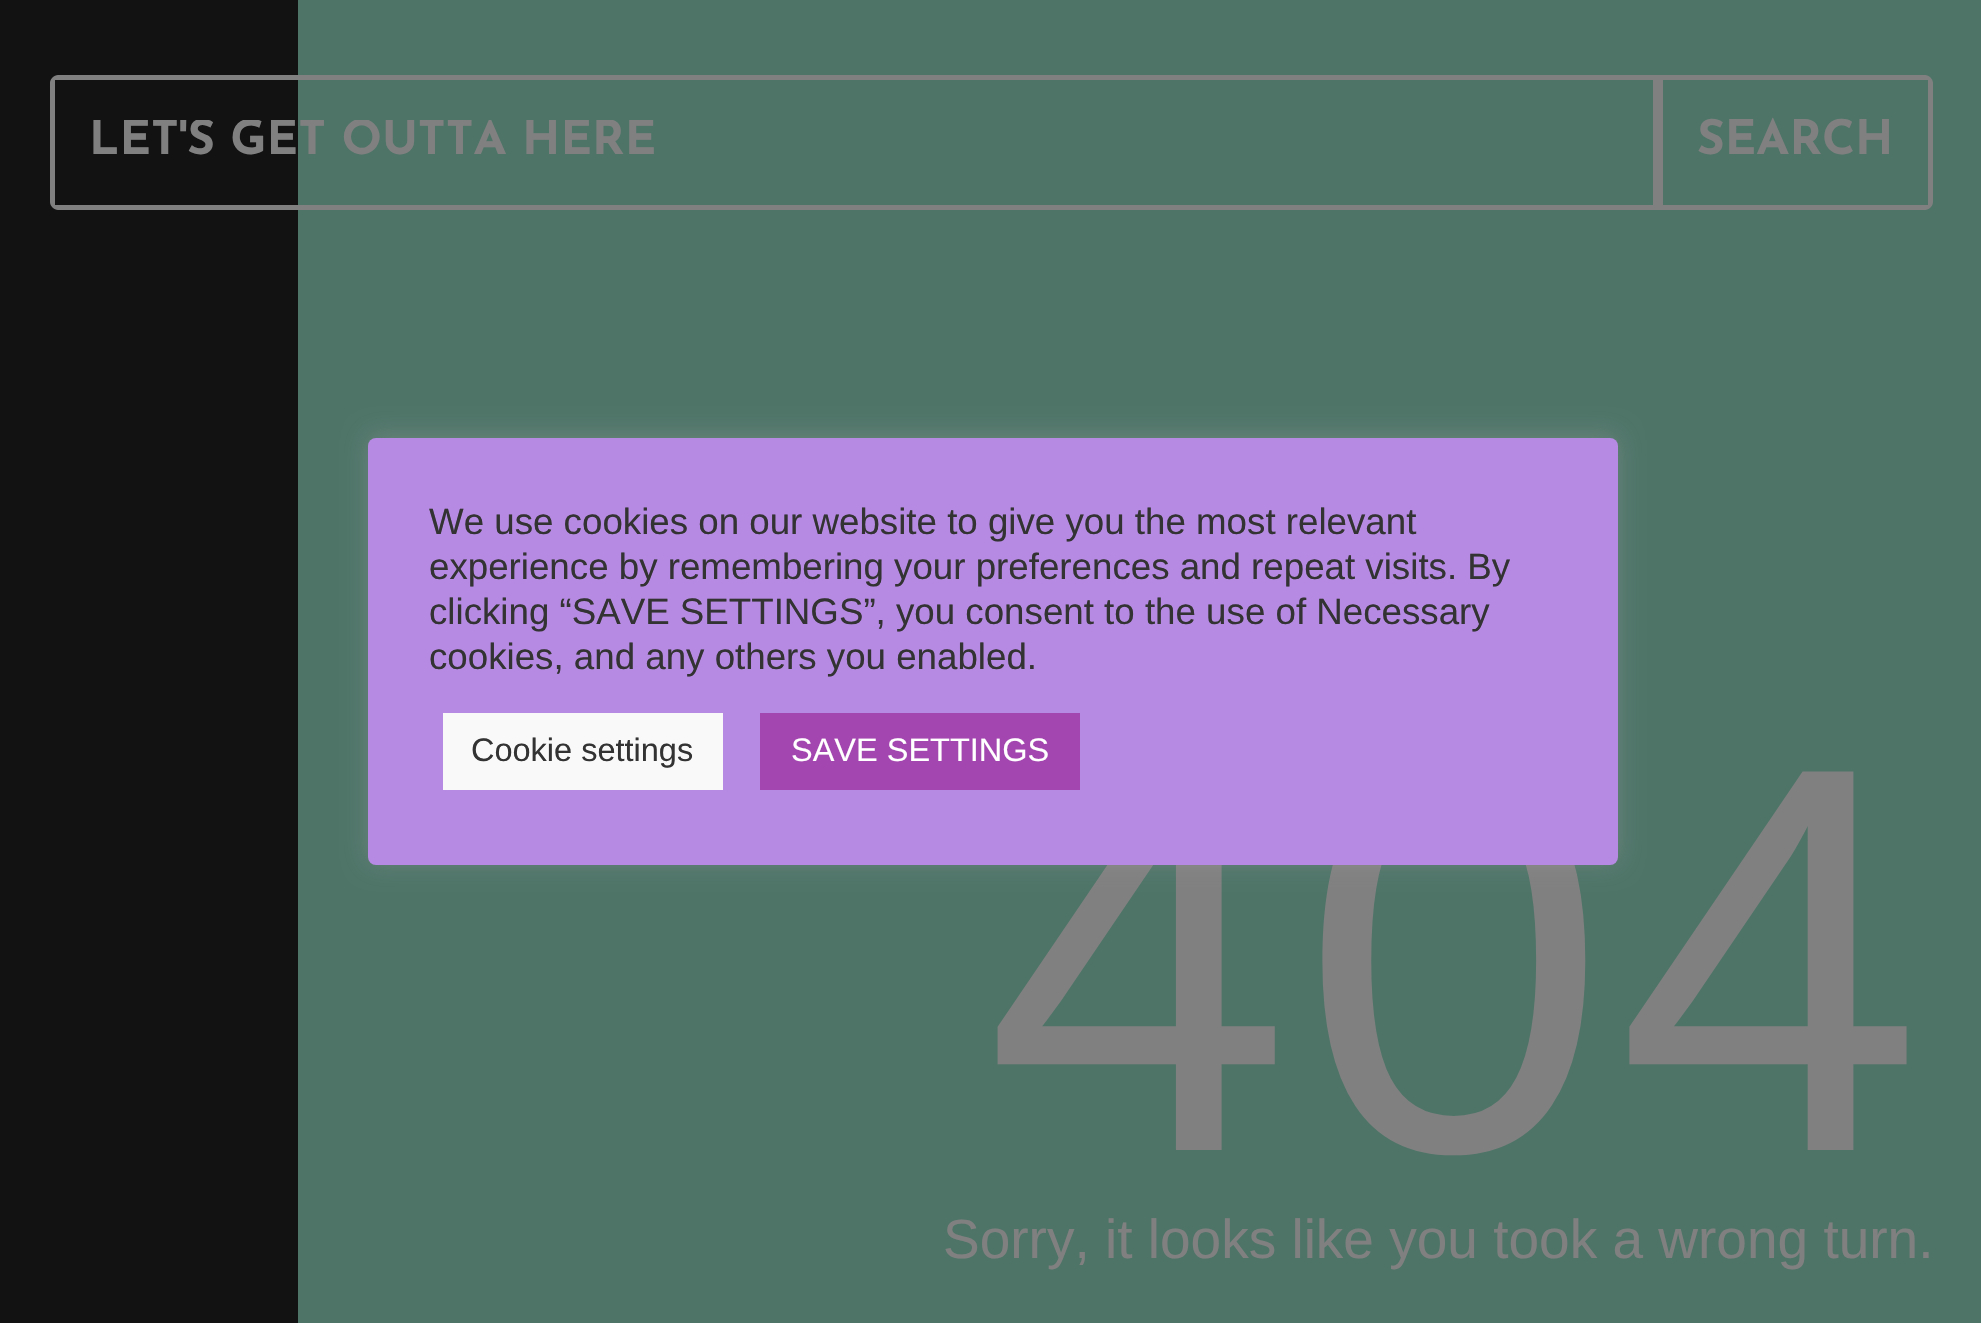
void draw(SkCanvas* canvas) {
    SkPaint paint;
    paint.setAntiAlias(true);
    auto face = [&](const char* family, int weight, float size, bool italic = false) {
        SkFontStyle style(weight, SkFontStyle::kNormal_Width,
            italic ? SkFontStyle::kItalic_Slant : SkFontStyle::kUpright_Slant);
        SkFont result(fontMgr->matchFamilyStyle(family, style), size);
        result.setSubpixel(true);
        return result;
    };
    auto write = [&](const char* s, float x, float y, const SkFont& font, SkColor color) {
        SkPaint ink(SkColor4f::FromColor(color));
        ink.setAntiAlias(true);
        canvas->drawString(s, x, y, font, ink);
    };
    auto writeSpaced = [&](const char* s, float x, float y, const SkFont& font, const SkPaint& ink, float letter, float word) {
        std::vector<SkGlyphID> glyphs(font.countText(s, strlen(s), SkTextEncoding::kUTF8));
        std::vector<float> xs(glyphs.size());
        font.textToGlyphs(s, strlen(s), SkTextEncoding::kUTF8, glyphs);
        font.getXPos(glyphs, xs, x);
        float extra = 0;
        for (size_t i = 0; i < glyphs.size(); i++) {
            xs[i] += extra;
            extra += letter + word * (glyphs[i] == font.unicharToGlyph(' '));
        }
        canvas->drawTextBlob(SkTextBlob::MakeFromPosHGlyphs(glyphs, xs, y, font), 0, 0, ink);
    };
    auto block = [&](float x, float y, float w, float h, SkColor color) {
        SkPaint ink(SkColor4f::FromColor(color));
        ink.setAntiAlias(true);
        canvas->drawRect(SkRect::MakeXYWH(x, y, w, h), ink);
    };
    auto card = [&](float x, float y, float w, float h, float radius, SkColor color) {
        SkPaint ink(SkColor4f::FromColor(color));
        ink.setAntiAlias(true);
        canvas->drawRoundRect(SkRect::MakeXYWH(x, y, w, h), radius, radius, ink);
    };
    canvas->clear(SkColorSetRGB(18, 18, 18));
    block(298, 0, 1683, 1323, SkColorSetRGB(78, 116, 104));
    paint.setColor(SkColorSetRGB(128, 128, 128));
    canvas->drawPath(SkPathBuilder(SkPathFillType::kEvenOdd).moveTo(58, 75).cubicTo(54, 75, 50, 79, 50, 83).lineTo(50, 202).cubicTo(50, 206, 54, 210, 58, 210).lineTo(1658, 210).lineTo(1658, 75).close().moveTo(55, 80).lineTo(55, 205).lineTo(1653, 205).lineTo(1653, 80).close().detach(), paint);
    canvas->save();
    canvas->clipRect(SkRect::MakeXYWH(88, 120, 1532, 48));
    auto kFont1 = face("Josefin Sans", 700, 47.5f);
    write("LET'S GET OUTTA HERE", 89, 154, kFont1, SkColorSetRGB(128, 128, 128));
    canvas->restore();
    canvas->drawPath(SkPathBuilder(SkPathFillType::kEvenOdd).moveTo(1658, 75).lineTo(1658, 210).lineTo(1925, 210).cubicTo(1929, 210, 1933, 206, 1933, 202).lineTo(1933, 83).cubicTo(1933, 79, 1929, 75, 1925, 75).close().moveTo(1663, 80).lineTo(1663, 205).lineTo(1928, 205).lineTo(1928, 80).close().detach(), paint);
    write("SEARCH", 1697, 154, kFont1, SkColorSetRGB(128, 128, 128));
    auto kFont2 = face("Liberation Sans", 400, 550);
    writeSpaced("404", 985, 1150, kFont2, paint, 10, 0);
    auto kFont3 = face("Liberation Sans", 400, 55);
    write("Sorry, it looks like you took a wrong turn.", 943, 1258, kFont3, SkColorSetRGB(128, 128, 128));
    paint.setColor(SkColorSetARGB(77, 172, 171, 171));
    paint.setMaskFilter(SkMaskFilter::MakeBlur(kNormal_SkBlurStyle, 12.5f));
    canvas->drawRoundRect(SkRect::MakeXYWH(368, 435, 1250, 428), 8, 8, paint);
    paint.setMaskFilter(nullptr);
    card(368, 438, 1250, 427, 8, SkColorSetRGB(182, 138, 226));
    auto kFont4 = face("Liberation Sans", 400, 36.7f);
    write("We use cookies on our website to give you the most relevant", 429, 534, kFont4, SkColorSetRGB(51, 51, 51));
    write("experience by remembering your preferences and repeat visits. By", 429, 579, kFont4, SkColorSetRGB(51, 51, 51));
    write("clicking “SAVE SETTINGS”, you consent to the use of Necessary", 429, 624, kFont4, SkColorSetRGB(51, 51, 51));
    write("cookies, and any others you enabled.", 429, 669, kFont4, SkColorSetRGB(51, 51, 51));
    block(443, 713, 280, 77, SkColorSetRGB(249, 249, 249));
    auto kFont5 = face("Liberation Sans", 400, 32.5f);
    write("Cookie settings", 471, 761, kFont5, SkColorSetRGB(51, 51, 51));
    block(760, 713, 320, 77, SkColorSetRGB(163, 70, 175));
    write("SAVE SETTINGS", 791, 761, kFont5, SK_ColorWHITE);
}
